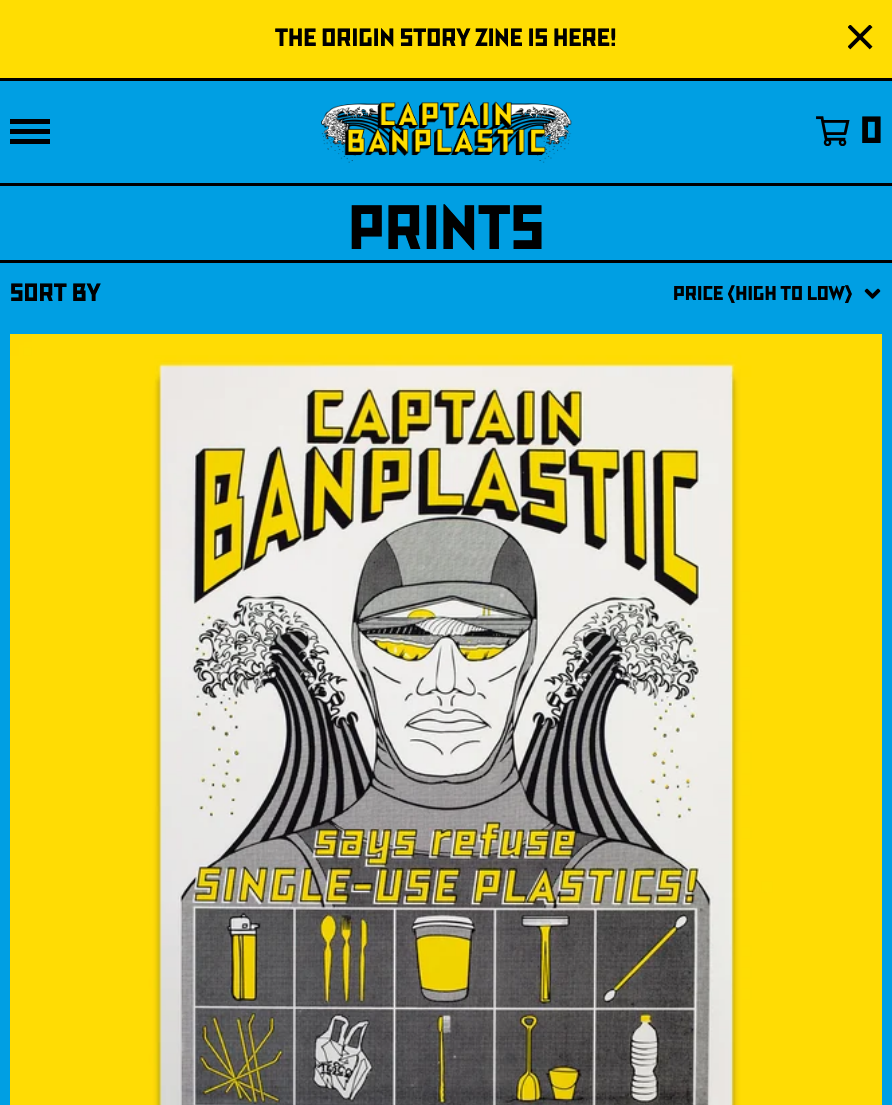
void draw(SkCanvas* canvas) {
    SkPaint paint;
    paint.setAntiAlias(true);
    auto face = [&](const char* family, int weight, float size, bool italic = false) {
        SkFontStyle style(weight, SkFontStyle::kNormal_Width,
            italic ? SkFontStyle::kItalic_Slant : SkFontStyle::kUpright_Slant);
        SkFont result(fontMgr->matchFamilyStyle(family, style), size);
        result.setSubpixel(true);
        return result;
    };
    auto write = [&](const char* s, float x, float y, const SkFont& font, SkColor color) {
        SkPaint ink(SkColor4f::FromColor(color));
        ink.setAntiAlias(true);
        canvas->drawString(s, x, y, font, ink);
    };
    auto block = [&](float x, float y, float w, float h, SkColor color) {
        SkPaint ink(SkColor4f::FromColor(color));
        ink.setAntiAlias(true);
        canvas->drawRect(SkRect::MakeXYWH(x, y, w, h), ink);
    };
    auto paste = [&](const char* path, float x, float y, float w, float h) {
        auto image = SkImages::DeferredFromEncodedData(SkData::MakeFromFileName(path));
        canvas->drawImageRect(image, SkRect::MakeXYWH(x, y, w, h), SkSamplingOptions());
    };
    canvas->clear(SkColorSetRGB(0, 159, 227));
    block(0, 0, 892, 78, SkColorSetRGB(255, 221, 2));
    block(0, 78, 892, 3, SK_ColorBLACK);
    auto kFont1 = face("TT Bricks", 800, 25);
    write("THE ORIGIN STORY ZINE IS HERE!", 275, 46, kFont1, SK_ColorBLACK);
    paste("pic1.png", 848, 25, 25, 25);
    block(0, 183, 892, 3, SK_ColorBLACK);
    block(10, 129, 40, 5, SK_ColorBLACK);
    block(10, 119, 40, 5, SK_ColorBLACK);
    block(10, 139, 40, 5, SK_ColorBLACK);
    paste("pic2.png", 321, 101, 251, 62);
    paste("pic3.png", 816, 116, 34, 30);
    auto kFont2 = face("TT Bricks", 800, 38);
    write("0", 860, 143, kFont2, SK_ColorBLACK);
    block(0, 260, 892, 3, SK_ColorBLACK);
    auto kFont3 = face("TT Bricks", 800, 62.5f);
    write("PRINTS", 348, 249, kFont3, SK_ColorBLACK);
    write("SORT BY", 10, 301, kFont1, SK_ColorBLACK);
    auto kFont4 = face("TT Bricks", 800, 20);
    write("PRICE (HIGH TO LOW)", 673, 300, kFont4, SK_ColorBLACK);
    paste("pic4.png", 864, 288, 17, 11);
    paste("pic5.png", 10, 334, 872, 771);
}
